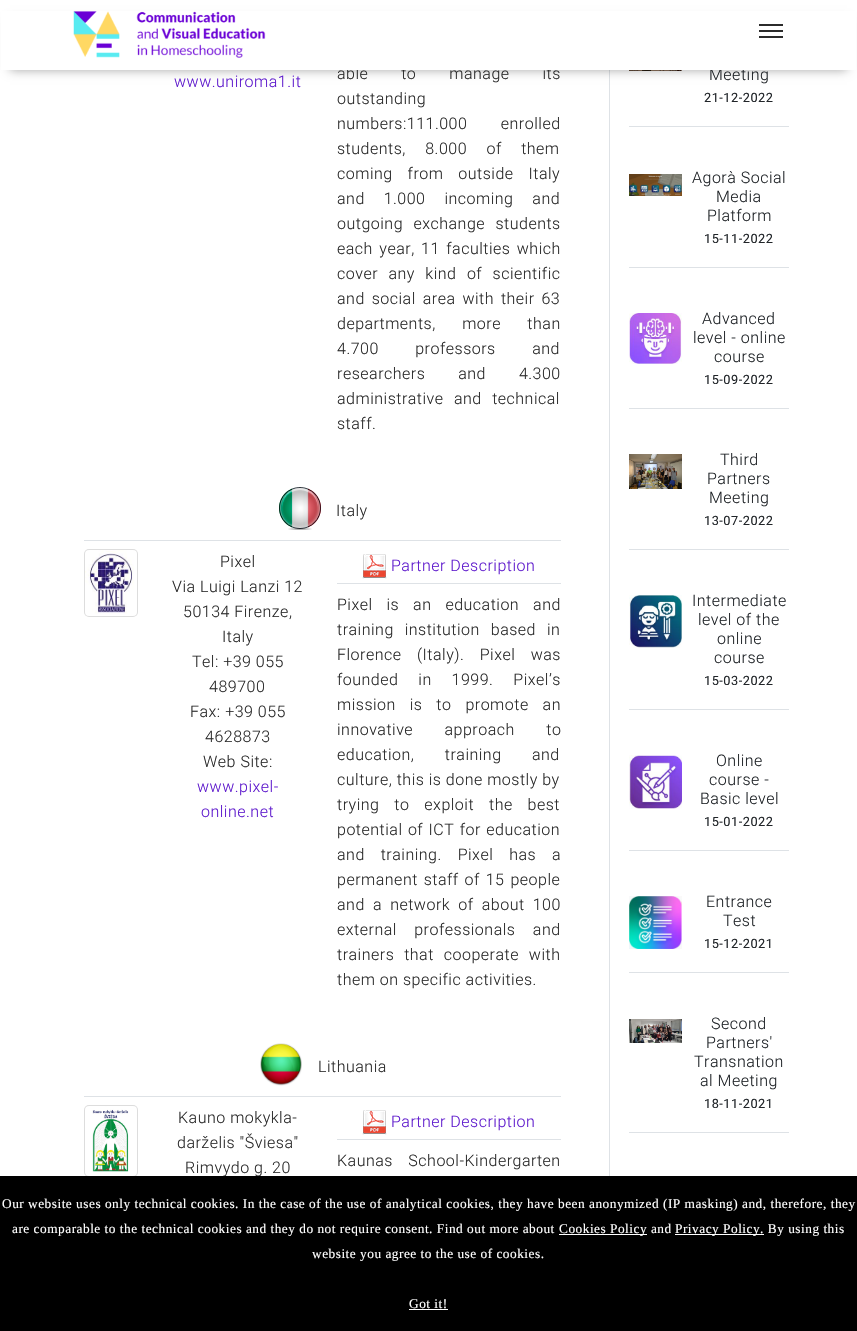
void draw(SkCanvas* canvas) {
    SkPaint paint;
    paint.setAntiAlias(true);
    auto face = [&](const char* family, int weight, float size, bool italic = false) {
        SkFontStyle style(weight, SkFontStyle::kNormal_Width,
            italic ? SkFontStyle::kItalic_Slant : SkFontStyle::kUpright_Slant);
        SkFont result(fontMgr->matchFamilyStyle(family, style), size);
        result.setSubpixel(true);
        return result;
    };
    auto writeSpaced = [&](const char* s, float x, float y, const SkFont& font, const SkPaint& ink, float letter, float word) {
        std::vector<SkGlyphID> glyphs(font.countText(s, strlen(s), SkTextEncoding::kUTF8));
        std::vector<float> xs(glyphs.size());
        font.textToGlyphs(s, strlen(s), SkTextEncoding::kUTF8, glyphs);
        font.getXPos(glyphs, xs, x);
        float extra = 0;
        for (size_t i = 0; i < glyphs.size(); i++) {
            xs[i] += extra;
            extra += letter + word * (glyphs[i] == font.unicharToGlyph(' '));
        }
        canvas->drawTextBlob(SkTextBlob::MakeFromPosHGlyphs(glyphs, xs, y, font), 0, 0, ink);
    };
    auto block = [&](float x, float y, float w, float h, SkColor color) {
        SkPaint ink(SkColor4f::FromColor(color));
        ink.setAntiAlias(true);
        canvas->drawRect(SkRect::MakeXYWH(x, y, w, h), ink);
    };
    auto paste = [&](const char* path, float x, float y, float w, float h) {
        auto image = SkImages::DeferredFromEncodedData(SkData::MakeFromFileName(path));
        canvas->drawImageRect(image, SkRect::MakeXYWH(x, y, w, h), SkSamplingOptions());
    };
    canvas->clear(SK_ColorWHITE);
    block(609, 70, 1, 1106, SkColorSetRGB(222, 226, 230));
    paste("pic7.png", 629, 70, 53, 1);
    paint.setColor(SkColorSetARGB(89, 0, 0, 0));
    paint.setMaskFilter(SkMaskFilter::MakeBlur(kNormal_SkBlurStyle, 5));
    canvas->drawRect(SkRect::MakeXYWH(10, 20, 837, 50), paint);
    paint.setMaskFilter(nullptr);
    auto kFont1 = face("Roboto", 300, 16);
    paint.setColor(SkColorSetRGB(43, 43, 43));
    writeSpaced("able to manage its", 337, 79, kFont1, paint, 0.5f, 28.5f);
    paint.setColor(SkColorSetRGB(33, 37, 41));
    writeSpaced("Meeting", 709, 80, kFont1, paint, 0.5f, 0);
    block(1, 11, 855, 59, SK_ColorWHITE);
    paste("pic1.png", 73, 11, 193, 47);
    block(759, 24, 24, 2, SkColorSetRGB(43, 43, 43));
    block(759, 30, 24, 2, SkColorSetRGB(43, 43, 43));
    block(759, 36, 24, 2, SkColorSetRGB(43, 43, 43));
    paint.setColor(SkColorSetRGB(95, 27, 205));
    writeSpaced("www.uniroma1.it", 174, 87, kFont1, paint, 0.5f, 0);
    paint.setColor(SkColorSetRGB(43, 43, 43));
    writeSpaced("outstanding", 337, 104, kFont1, paint, 0.5f, 0);
    writeSpaced("numbers:111.000 enrolled", 337, 129, kFont1, paint, 0.5f, 29);
    writeSpaced("students, 8.000 of them", 337, 154, kFont1, paint, 0.5f, 15);
    writeSpaced("coming from outside Italy", 337, 179, kFont1, paint, 0.5f, 10.5f);
    writeSpaced("and 1.000 incoming and", 337, 204, kFont1, paint, 0.5f, 14.5f);
    writeSpaced("outgoing exchange students", 337, 229, kFont1, paint, 0.5f, 6);
    writeSpaced("each year, 11 faculties which", 337, 254, kFont1, paint, 0.5f, 2);
    writeSpaced("cover any kind of scientific", 337, 279, kFont1, paint, 0.5f, 6);
    writeSpaced("and social area with their 63", 337, 304, kFont1, paint, 0.5f, 2.5f);
    writeSpaced("departments, more than", 337, 329, kFont1, paint, 0.5f, 22);
    writeSpaced("4.700 professors and", 337, 354, kFont1, paint, 0.5f, 32);
    writeSpaced("researchers and 4.300", 337, 379, kFont1, paint, 0.5f, 28.5f);
    writeSpaced("administrative and technical", 337, 404, kFont1, paint, 0.5f, 6);
    writeSpaced("staff.", 337, 429, kFont1, paint, 0.5f, 0);
    paste("pic2.png", 279, 487, 42, 43);
    writeSpaced("Italy", 336, 516, kFont1, paint, 0.5f, 0);
    block(84, 540, 477, 1, SkColorSetRGB(222, 226, 230));
    paste("pic3.png", 84, 549, 54, 68);
    writeSpaced("Pixel", 220, 567, kFont1, paint, 0.5f, 0);
    writeSpaced("Via Luigi Lanzi 12", 172, 592, kFont1, paint, 0.5f, 0);
    writeSpaced("50134 Firenze,", 183, 617, kFont1, paint, 0.5f, 0);
    writeSpaced("Italy", 222, 642, kFont1, paint, 0.5f, 0);
    writeSpaced("Tel: +39 055", 192, 667, kFont1, paint, 0.5f, 0);
    writeSpaced("489700", 209, 692, kFont1, paint, 0.5f, 0);
    writeSpaced("Fax: +39 055", 190, 717, kFont1, paint, 0.5f, 0);
    writeSpaced("4628873", 205, 742, kFont1, paint, 0.5f, 0);
    writeSpaced("Web Site:", 203, 767, kFont1, paint, 0.5f, 0);
    paint.setColor(SkColorSetRGB(95, 27, 205));
    writeSpaced("www.pixel-", 197, 792, kFont1, paint, 0.5f, 0);
    writeSpaced("online.net", 201, 817, kFont1, paint, 0.5f, 0);
    block(337, 583, 224, 1, SkColorSetRGB(222, 226, 230));
    paste("pic4.png", 362, 554, 25, 25);
    writeSpaced("Partner Description", 391, 571, kFont1, paint, 0.5f, 0);
    paint.setColor(SkColorSetRGB(43, 43, 43));
    writeSpaced("Pixel is an education and", 337, 610, kFont1, paint, 0.5f, 9.5f);
    writeSpaced("training institution based in", 337, 635, kFont1, paint, 0.5f, 6.5f);
    writeSpaced("Florence (Italy). Pixel was", 337, 660, kFont1, paint, 0.5f, 11);
    writeSpaced("founded in 1999. Pixel’s", 337, 685, kFont1, paint, 0.5f, 15.5f);
    writeSpaced("mission is to promote an", 337, 710, kFont1, paint, 0.5f, 9.5f);
    writeSpaced("innovative approach to", 337, 735, kFont1, paint, 0.5f, 27);
    writeSpaced("education, training and", 337, 760, kFont1, paint, 0.5f, 26);
    writeSpaced("culture, this is done mostly by", 337, 785, kFont1, paint, 0.5f, 0);
    writeSpaced("trying to exploit the best", 337, 810, kFont1, paint, 0.5f, 10.5f);
    writeSpaced("potential of ICT for education", 337, 835, kFont1, paint, 0.5f, 1);
    writeSpaced("and training. Pixel has a", 337, 860, kFont1, paint, 0.5f, 11.5f);
    writeSpaced("permanent staff of 15 people", 337, 885, kFont1, paint, 0.5f, 1.5f);
    writeSpaced("and a network of about 100", 337, 910, kFont1, paint, 0.5f, 3.75f);
    writeSpaced("external professionals and", 337, 935, kFont1, paint, 0.5f, 13);
    writeSpaced("trainers that cooperate with", 337, 960, kFont1, paint, 0.5f, 5.5f);
    writeSpaced("them on specific activities.", 337, 985, kFont1, paint, 0.5f, 0);
    paste("pic5.png", 260, 1043, 42, 43);
    writeSpaced("Lithuania", 318, 1072, kFont1, paint, 0.5f, 0);
    block(84, 1096, 477, 1, SkColorSetRGB(222, 226, 230));
    paste("pic6.png", 84, 1105, 54, 71);
    writeSpaced("Kauno mokykla-", 178, 1123, kFont1, paint, 0.5f, 0);
    writeSpaced("darželis \"Šviesa\"", 177, 1148, kFont1, paint, 0.5f, 0);
    writeSpaced("Rimvydo g. 20", 185, 1173, kFont1, paint, 0.5f, 0);
    block(337, 1139, 224, 1, SkColorSetRGB(222, 226, 230));
    paste("pic4.png", 362, 1110, 25, 25);
    paint.setColor(SkColorSetRGB(95, 27, 205));
    writeSpaced("Partner Description", 391, 1127, kFont1, paint, 0.5f, 0);
    paint.setColor(SkColorSetRGB(43, 43, 43));
    writeSpaced("Kaunas School-Kindergarten", 337, 1166, kFont1, paint, 0.5f, 11);
    block(629, 126, 160, 1, SkColorSetRGB(222, 226, 230));
    auto kFont2 = face("Roboto", 400, 12.75f);
    paint.setColor(SkColorSetRGB(33, 37, 41));
    writeSpaced("21-12-2022", 704, 102, kFont2, paint, 0.5f, 0);
    block(629, 267, 160, 1, SkColorSetRGB(222, 226, 230));
    paste("pic8.png", 629, 174, 53, 22);
    writeSpaced("Agorà Social", 692, 183, kFont1, paint, 0.5f, 0);
    writeSpaced("Media", 716, 202, kFont1, paint, 0.5f, 0);
    writeSpaced("Platform", 707, 221, kFont1, paint, 0.5f, 0);
    writeSpaced("15-11-2022", 704, 243, kFont2, paint, 0.5f, 0);
    block(629, 408, 160, 1, SkColorSetRGB(222, 226, 230));
    paste("pic9.png", 629, 313, 53, 51);
    writeSpaced("Advanced", 702, 324, kFont1, paint, 0.5f, 0);
    writeSpaced("level - online", 693, 343, kFont1, paint, 0.5f, 0);
    writeSpaced("course", 714, 362, kFont1, paint, 0.5f, 0);
    writeSpaced("15-09-2022", 704, 384, kFont2, paint, 0.5f, 0);
    block(629, 549, 160, 1, SkColorSetRGB(222, 226, 230));
    paste("pic10.png", 629, 454, 53, 35);
    writeSpaced("Third", 720, 465, kFont1, paint, 0.5f, 0);
    writeSpaced("Partners", 707, 484, kFont1, paint, 0.5f, 0);
    writeSpaced("Meeting", 709, 503, kFont1, paint, 0.5f, 0);
    writeSpaced("13-07-2022", 704, 525, kFont2, paint, 0.5f, 0);
    block(629, 709, 160, 1, SkColorSetRGB(222, 226, 230));
    paste("pic11.png", 629, 595, 53, 53);
    writeSpaced("Intermediate", 692, 606, kFont1, paint, 0.5f, 0);
    writeSpaced("level of the", 698, 625, kFont1, paint, 0.5f, 0);
    writeSpaced("online", 717, 644, kFont1, paint, 0.5f, 0);
    writeSpaced("course", 714, 663, kFont1, paint, 0.5f, 0);
    writeSpaced("15-03-2022", 704, 685, kFont2, paint, 0.5f, 0);
    block(629, 850, 160, 1, SkColorSetRGB(222, 226, 230));
    paste("pic12.png", 629, 755, 53, 54);
    writeSpaced("Online", 716, 766, kFont1, paint, 0.5f, 0);
    writeSpaced("course -", 709, 785, kFont1, paint, 0.5f, 0);
    writeSpaced("Basic level", 700, 804, kFont1, paint, 0.5f, 0);
    writeSpaced("15-01-2022", 704, 826, kFont2, paint, 0.5f, 0);
    block(629, 972, 160, 1, SkColorSetRGB(222, 226, 230));
    paste("pic13.png", 629, 896, 53, 53);
    writeSpaced("Entrance", 706, 907, kFont1, paint, 0.5f, 0);
    writeSpaced("Test", 723, 926, kFont1, paint, 0.5f, 0);
    writeSpaced("15-12-2021", 704, 948, kFont2, paint, 0.5f, 0);
    block(629, 1132, 160, 1, SkColorSetRGB(222, 226, 230));
    paste("pic14.png", 629, 1019, 53, 24);
    writeSpaced("Second", 711, 1029, kFont1, paint, 0.5f, 0);
    writeSpaced("Partners'", 706, 1048, kFont1, paint, 0.5f, 0);
    writeSpaced("Transnation", 694, 1067, kFont1, paint, 0.5f, 0);
    writeSpaced("al Meeting", 700, 1086, kFont1, paint, 0.5f, 0);
    writeSpaced("18-11-2021", 704, 1108, kFont2, paint, 0.5f, 0);
    block(0, 1176, 857, 155, SK_ColorBLACK);
    auto kFont3 = face("Liberation Serif", 400, 13.33f);
    paint.setColor(SK_ColorWHITE);
    writeSpaced("Our website uses only technical cookies. In the case of the use of analytical cookies, they have been anonymized (IP masking) and, therefore, they", 2, 1208, kFont3, paint, 0.5f, 0);
    writeSpaced("are comparable to the technical cookies and they do not require consent. Find out more about", 12, 1233, kFont3, paint, 0.5f, 0);
    block(559, 1234, 88, 1, SK_ColorWHITE);
    writeSpaced("Cookies Policy and", 559, 1233, kFont3, paint, 0.5f, 0);
    block(675, 1234, 89, 1, SK_ColorWHITE);
    writeSpaced("Privacy Policy. By using this", 675, 1233, kFont3, paint, 0.5f, 0);
    writeSpaced("website you agree to the use of cookies.", 312, 1258, kFont3, paint, 0.5f, 0);
    writeSpaced("Got it!", 409, 1308, kFont3, paint, 0.5f, 0);
    block(409, 1309, 39, 1, SK_ColorWHITE);
}
